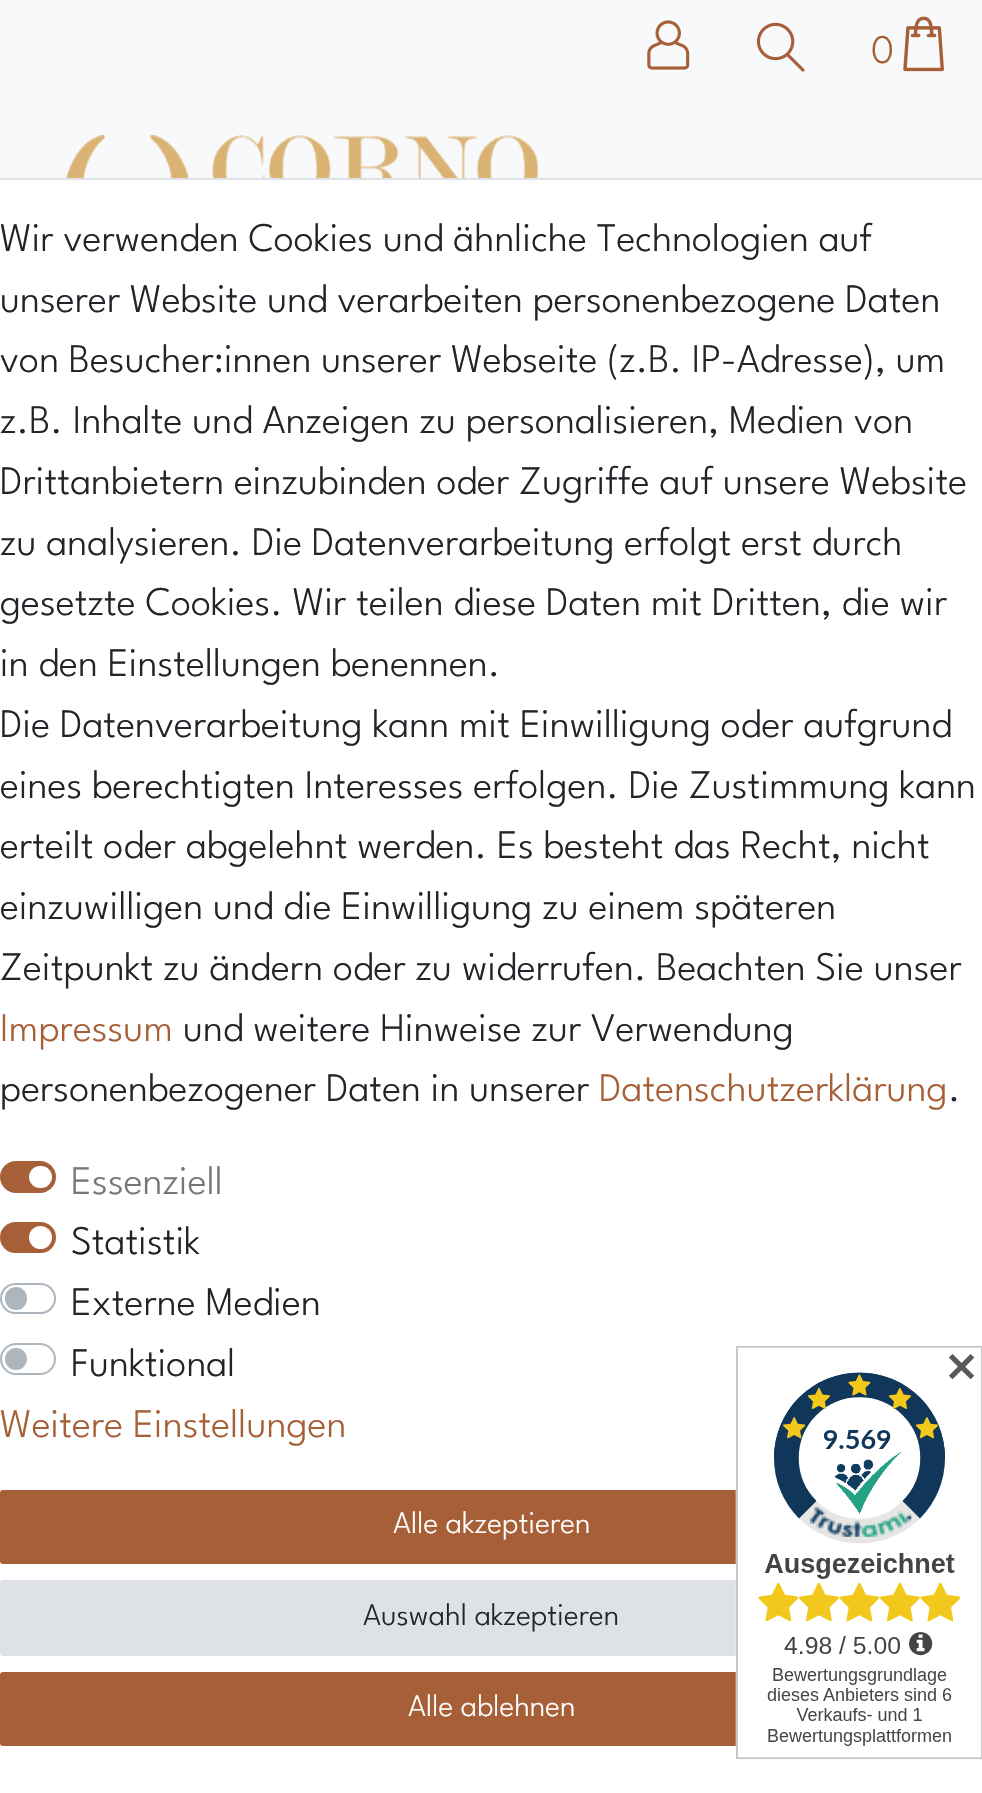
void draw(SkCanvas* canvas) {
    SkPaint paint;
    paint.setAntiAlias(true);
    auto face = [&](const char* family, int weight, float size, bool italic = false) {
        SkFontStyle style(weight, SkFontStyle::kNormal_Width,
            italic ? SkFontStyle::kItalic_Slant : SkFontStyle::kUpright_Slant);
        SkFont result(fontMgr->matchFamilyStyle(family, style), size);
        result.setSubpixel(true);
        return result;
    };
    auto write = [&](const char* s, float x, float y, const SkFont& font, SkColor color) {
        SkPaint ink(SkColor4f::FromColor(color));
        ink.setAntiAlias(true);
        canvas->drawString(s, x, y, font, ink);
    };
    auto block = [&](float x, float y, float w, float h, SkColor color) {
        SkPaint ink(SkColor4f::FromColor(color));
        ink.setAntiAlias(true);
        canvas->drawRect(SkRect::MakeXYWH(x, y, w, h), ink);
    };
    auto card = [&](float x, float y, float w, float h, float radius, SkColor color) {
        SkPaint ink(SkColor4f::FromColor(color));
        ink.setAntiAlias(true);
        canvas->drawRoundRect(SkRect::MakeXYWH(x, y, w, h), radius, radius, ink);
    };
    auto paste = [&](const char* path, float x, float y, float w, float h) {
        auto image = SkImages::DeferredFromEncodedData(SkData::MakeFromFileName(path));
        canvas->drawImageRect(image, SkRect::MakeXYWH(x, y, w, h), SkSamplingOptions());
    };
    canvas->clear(SkColorSetRGB(248, 249, 250));
    paste("pic1.png", 647, 20, 43, 50);
    paste("pic2.png", 756, 22, 49, 50);
    paste("pic3.png", 903, 16, 41, 56);
    auto kFont1 = face("League Spartan", 300, 40.5f);
    write("0", 871, 63, kFont1, SkColorSetRGB(166, 95, 55));
    paste("pic4.png", 66, 135, 472, 43);
    block(0, 180, 982, 1613, SK_ColorWHITE);
    block(0, 178, 982, 2, SkColorSetRGB(222, 226, 230));
    write("Wir verwenden Cookies und ähnliche Technologien auf", 0, 251, kFont1, SkColorSetRGB(33, 37, 41));
    write("unserer Website und verarbeiten personenbezogene Daten", 0, 312, kFont1, SkColorSetRGB(33, 37, 41));
    write("von Besucher:innen unserer Webseite (z.B. IP-Adresse), um", 0, 372, kFont1, SkColorSetRGB(33, 37, 41));
    write("z.B. Inhalte und Anzeigen zu personalisieren, Medien von", 0, 433, kFont1, SkColorSetRGB(33, 37, 41));
    write("Drittanbietern einzubinden oder Zugriffe auf unsere Website", 0, 494, kFont1, SkColorSetRGB(33, 37, 41));
    write("zu analysieren. Die Datenverarbeitung erfolgt erst durch", 0, 555, kFont1, SkColorSetRGB(33, 37, 41));
    write("gesetzte Cookies. Wir teilen diese Daten mit Dritten, die wir", 0, 615, kFont1, SkColorSetRGB(33, 37, 41));
    write("in den Einstellungen benennen.", 0, 676, kFont1, SkColorSetRGB(33, 37, 41));
    write("Die Datenverarbeitung kann mit Einwilligung oder aufgrund", 0, 737, kFont1, SkColorSetRGB(33, 37, 41));
    write("eines berechtigten Interesses erfolgen. Die Zustimmung kann", 0, 798, kFont1, SkColorSetRGB(33, 37, 41));
    write("erteilt oder abgelehnt werden. Es besteht das Recht, nicht", 0, 858, kFont1, SkColorSetRGB(33, 37, 41));
    write("einzuwilligen und die Einwilligung zu einem späteren", 0, 919, kFont1, SkColorSetRGB(33, 37, 41));
    write("Zeitpunkt zu ändern oder zu widerrufen. Beachten Sie unser", 0, 980, kFont1, SkColorSetRGB(33, 37, 41));
    write("Impressum", 0, 1041, kFont1, SkColorSetRGB(166, 95, 55));
    write("und weitere Hinweise zur Verwendung", 183, 1041, kFont1, SkColorSetRGB(33, 37, 41));
    write("personenbezogener Daten in unserer", 0, 1101, kFont1, SkColorSetRGB(33, 37, 41));
    write("Datenschutzerklärung", 599, 1101, kFont1, SkColorSetRGB(166, 95, 55));
    write(".", 948, 1101, kFont1, SkColorSetRGB(33, 37, 41));
    paint.setColor(SkColorSetRGB(166, 95, 55));
    canvas->drawRoundRect(SkRect::MakeXYWH(1, 1162, 54, 30), 15, 15, paint);
    paint.setStyle(SkPaint::kStroke_Style);
    paint.setStrokeWidth(2);
    canvas->drawRoundRect(SkRect::MakeXYWH(1, 1162, 54, 30), 15, 15, paint);
    card(29, 1166, 23, 22, 11, SK_ColorWHITE);
    write("Essenziell", 71, 1194, kFont1, SkColorSetRGB(118, 118, 118));
    paint.setStyle(SkPaint::kFill_Style);
    canvas->drawRoundRect(SkRect::MakeXYWH(1, 1223, 54, 29), 14.5f, 14.5f, paint);
    paint.setStyle(SkPaint::kStroke_Style);
    canvas->drawRoundRect(SkRect::MakeXYWH(1, 1223, 54, 29), 14.5f, 14.5f, paint);
    paint.setStyle(SkPaint::kFill_Style);
    paint.setColor(SK_ColorWHITE);
    canvas->drawCircle(40.5f, 1237.5f, 11.5f, paint);
    write("Statistik", 71, 1254, kFont1, SkColorSetRGB(33, 37, 41));
    paint.setStyle(SkPaint::kStroke_Style);
    paint.setColor(SkColorSetRGB(173, 181, 189));
    canvas->drawRoundRect(SkRect::MakeXYWH(1, 1284, 54, 29), 14.5f, 14.5f, paint);
    card(5, 1287, 22, 23, 11, SkColorSetRGB(173, 181, 189));
    write("Externe Medien", 71, 1315, kFont1, SkColorSetRGB(33, 37, 41));
    canvas->drawRoundRect(SkRect::MakeXYWH(1, 1344, 54, 30), 15, 15, paint);
    paint.setStyle(SkPaint::kFill_Style);
    canvas->drawCircle(16, 1359, 11, paint);
    write("Funktional", 71, 1376, kFont1, SkColorSetRGB(33, 37, 41));
    write("Weitere Einstellungen", 0, 1437, kFont1, SkColorSetRGB(166, 95, 55));
    paint.setColor(SkColorSetRGB(166, 95, 55));
    canvas->drawRoundRect(SkRect::MakeXYWH(1, 1491, 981, 72), 2, 2, paint);
    paint.setStyle(SkPaint::kStroke_Style);
    canvas->drawRoundRect(SkRect::MakeXYWH(1, 1491, 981, 72), 2, 2, paint);
    auto kFont2 = face("League Spartan", 300, 31.5f);
    write("Alle akzeptieren", 393, 1533, kFont2, SK_ColorWHITE);
    paint.setStyle(SkPaint::kFill_Style);
    paint.setColor(SkColorSetRGB(222, 226, 230));
    canvas->drawRoundRect(SkRect::MakeXYWH(1, 1581, 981, 74), 2, 2, paint);
    paint.setStyle(SkPaint::kStroke_Style);
    canvas->drawRoundRect(SkRect::MakeXYWH(1, 1581, 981, 74), 2, 2, paint);
    write("Auswahl akzeptieren", 363, 1625, kFont2, SkColorSetRGB(33, 37, 41));
    paint.setStyle(SkPaint::kFill_Style);
    paint.setColor(SkColorSetRGB(166, 95, 55));
    canvas->drawRoundRect(SkRect::MakeXYWH(1, 1673, 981, 72), 2, 2, paint);
    paint.setStyle(SkPaint::kStroke_Style);
    canvas->drawRoundRect(SkRect::MakeXYWH(1, 1673, 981, 72), 2, 2, paint);
    write("Alle ablehnen", 408, 1716, kFont2, SK_ColorWHITE);
    paste("pic5.png", 735, 1345, 247, 415);
    auto kFont3 = face("DejaVu Sans", 700, 40.5f);
    write("✕", 944, 1382, kFont3, SkColorSetRGB(89, 89, 89));
}
